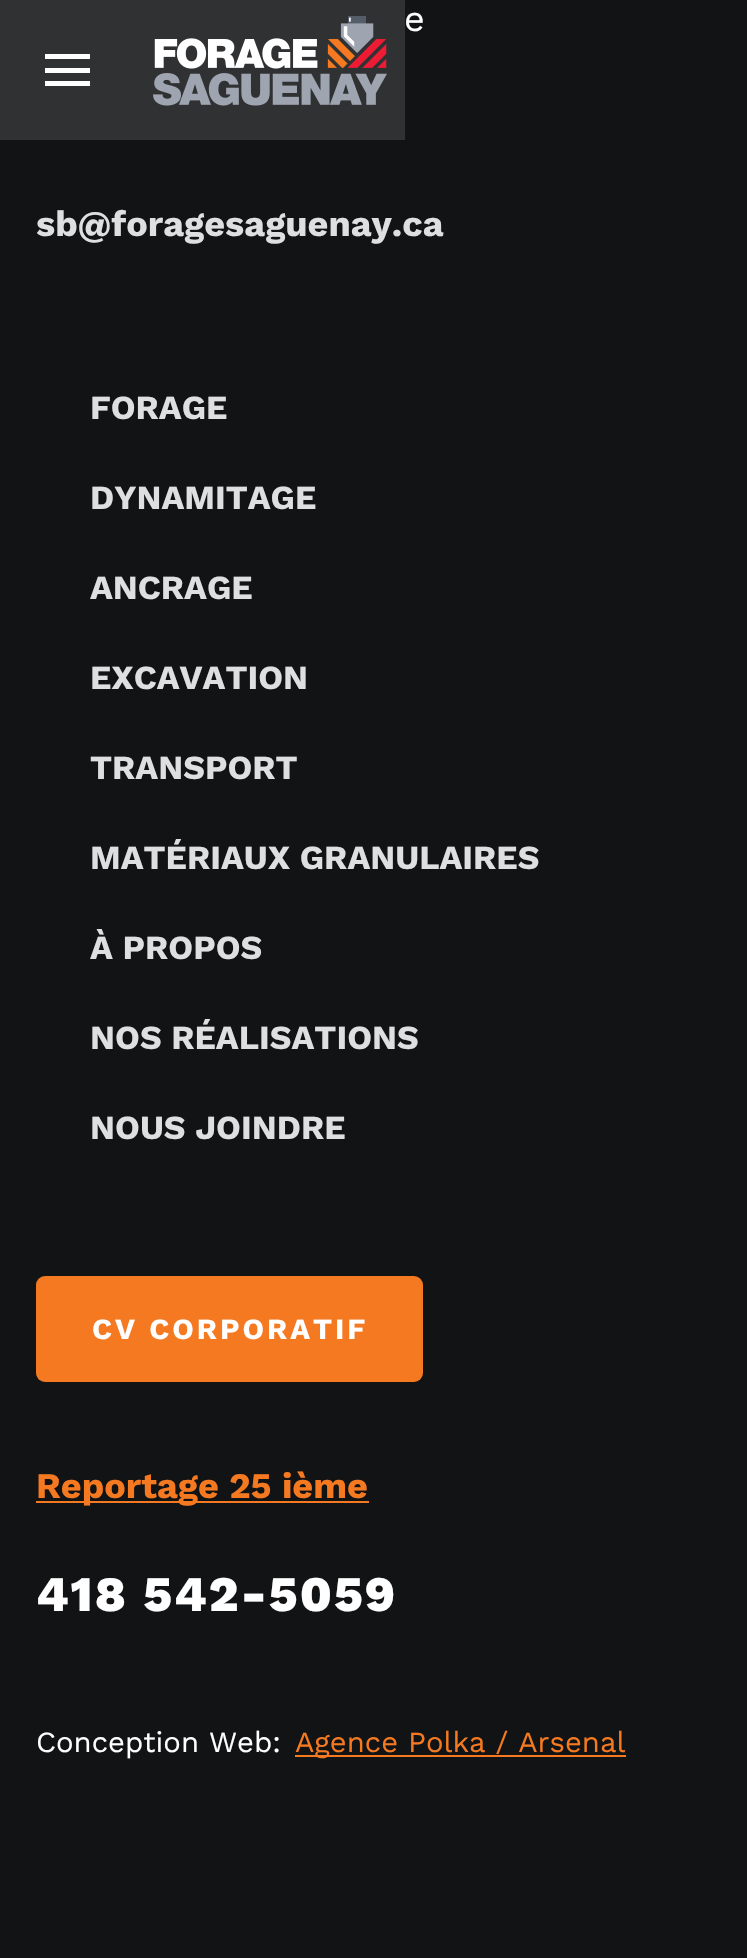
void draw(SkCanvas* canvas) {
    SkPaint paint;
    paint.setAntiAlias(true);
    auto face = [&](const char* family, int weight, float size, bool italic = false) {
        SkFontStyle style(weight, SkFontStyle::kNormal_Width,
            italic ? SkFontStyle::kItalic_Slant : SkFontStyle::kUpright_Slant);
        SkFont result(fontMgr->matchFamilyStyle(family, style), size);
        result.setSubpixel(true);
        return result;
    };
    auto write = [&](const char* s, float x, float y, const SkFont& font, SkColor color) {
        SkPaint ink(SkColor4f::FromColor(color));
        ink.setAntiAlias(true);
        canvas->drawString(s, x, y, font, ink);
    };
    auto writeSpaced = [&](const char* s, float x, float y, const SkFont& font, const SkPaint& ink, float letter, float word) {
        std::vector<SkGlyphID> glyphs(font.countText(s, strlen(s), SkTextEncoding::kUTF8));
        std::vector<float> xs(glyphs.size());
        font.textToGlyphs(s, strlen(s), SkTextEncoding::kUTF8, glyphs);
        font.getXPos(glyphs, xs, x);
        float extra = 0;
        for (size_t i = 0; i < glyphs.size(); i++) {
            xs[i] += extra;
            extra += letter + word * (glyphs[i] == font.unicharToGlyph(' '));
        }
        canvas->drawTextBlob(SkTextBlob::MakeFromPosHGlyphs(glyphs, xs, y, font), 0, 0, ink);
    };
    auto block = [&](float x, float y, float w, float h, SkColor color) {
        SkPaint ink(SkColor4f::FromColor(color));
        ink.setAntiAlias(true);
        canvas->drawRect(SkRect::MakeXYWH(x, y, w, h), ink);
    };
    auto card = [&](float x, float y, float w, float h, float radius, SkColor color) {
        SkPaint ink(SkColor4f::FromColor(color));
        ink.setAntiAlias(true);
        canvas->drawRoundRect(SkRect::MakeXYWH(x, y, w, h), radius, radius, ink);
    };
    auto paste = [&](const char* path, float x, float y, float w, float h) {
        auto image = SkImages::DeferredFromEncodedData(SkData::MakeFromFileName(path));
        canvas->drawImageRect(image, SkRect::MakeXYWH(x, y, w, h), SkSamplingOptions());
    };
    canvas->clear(SkColorSetRGB(17, 19, 21));
    block(0, 0, 405, 140, SkColorSetRGB(48, 49, 51));
    paste("pic1.png", 153, 16, 234, 90);
    block(45, 54, 45, 5, SK_ColorWHITE);
    block(45, 68, 45, 5, SK_ColorWHITE);
    block(45, 81, 45, 5, SK_ColorWHITE);
    auto kFont1 = face("Work Sans", 400, 36);
    write("e", 404, 31, kFont1, SK_ColorWHITE);
    auto kFont2 = face("Work Sans", 700, 36);
    write("sb@foragesaguenay.ca", 36, 236, kFont2, SkColorSetRGB(221, 223, 225));
    auto kFont3 = face("Work Sans", 700, 33.75f);
    write("FORAGE", 90, 419, kFont3, SkColorSetRGB(221, 223, 225));
    write("DYNAMITAGE", 90, 509, kFont3, SkColorSetRGB(221, 223, 225));
    write("ANCRAGE", 90, 599, kFont3, SkColorSetRGB(221, 223, 225));
    write("EXCAVATION", 90, 689, kFont3, SkColorSetRGB(221, 223, 225));
    write("TRANSPORT", 90, 779, kFont3, SkColorSetRGB(221, 223, 225));
    write("MATÉRIAUX GRANULAIRES", 90, 869, kFont3, SkColorSetRGB(221, 223, 225));
    write("À PROPOS", 90, 959, kFont3, SkColorSetRGB(221, 223, 225));
    write("NOS RÉALISATIONS", 90, 1049, kFont3, SkColorSetRGB(221, 223, 225));
    write("NOUS JOINDRE", 90, 1139, kFont3, SkColorSetRGB(221, 223, 225));
    card(36, 1276, 387, 106, 9, SkColorSetRGB(244, 121, 32));
    auto kFont4 = face("Work Sans", 700, 29.25f);
    paint.setColor(SK_ColorWHITE);
    writeSpaced("CV CORPORATIF", 92, 1339, kFont4, paint, 3, 0);
    block(36, 1501, 333, 2, SkColorSetRGB(244, 121, 32));
    write("Reportage 25 ième", 36, 1498, kFont2, SkColorSetRGB(244, 121, 32));
    auto kFont5 = face("Work Sans", 800, 49.5f);
    writeSpaced("418 542-5059", 36, 1611, kFont5, paint, 2, 0);
    auto kFont6 = face("Work Sans", 400, 29.25f);
    write("Conception Web:", 36, 1752, kFont6, SK_ColorWHITE);
    block(295, 1755, 331, 2, SkColorSetRGB(244, 121, 32));
    write("Agence Polka / Arsenal", 295, 1752, kFont6, SkColorSetRGB(244, 121, 32));
}
